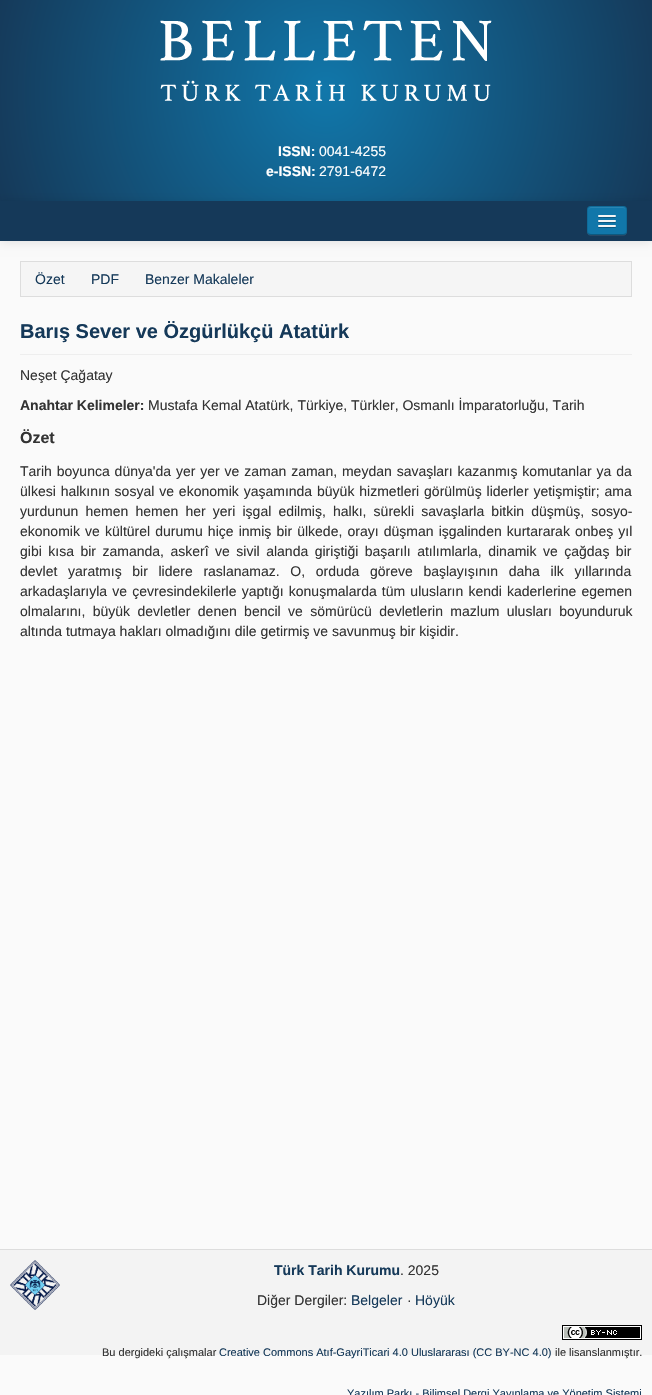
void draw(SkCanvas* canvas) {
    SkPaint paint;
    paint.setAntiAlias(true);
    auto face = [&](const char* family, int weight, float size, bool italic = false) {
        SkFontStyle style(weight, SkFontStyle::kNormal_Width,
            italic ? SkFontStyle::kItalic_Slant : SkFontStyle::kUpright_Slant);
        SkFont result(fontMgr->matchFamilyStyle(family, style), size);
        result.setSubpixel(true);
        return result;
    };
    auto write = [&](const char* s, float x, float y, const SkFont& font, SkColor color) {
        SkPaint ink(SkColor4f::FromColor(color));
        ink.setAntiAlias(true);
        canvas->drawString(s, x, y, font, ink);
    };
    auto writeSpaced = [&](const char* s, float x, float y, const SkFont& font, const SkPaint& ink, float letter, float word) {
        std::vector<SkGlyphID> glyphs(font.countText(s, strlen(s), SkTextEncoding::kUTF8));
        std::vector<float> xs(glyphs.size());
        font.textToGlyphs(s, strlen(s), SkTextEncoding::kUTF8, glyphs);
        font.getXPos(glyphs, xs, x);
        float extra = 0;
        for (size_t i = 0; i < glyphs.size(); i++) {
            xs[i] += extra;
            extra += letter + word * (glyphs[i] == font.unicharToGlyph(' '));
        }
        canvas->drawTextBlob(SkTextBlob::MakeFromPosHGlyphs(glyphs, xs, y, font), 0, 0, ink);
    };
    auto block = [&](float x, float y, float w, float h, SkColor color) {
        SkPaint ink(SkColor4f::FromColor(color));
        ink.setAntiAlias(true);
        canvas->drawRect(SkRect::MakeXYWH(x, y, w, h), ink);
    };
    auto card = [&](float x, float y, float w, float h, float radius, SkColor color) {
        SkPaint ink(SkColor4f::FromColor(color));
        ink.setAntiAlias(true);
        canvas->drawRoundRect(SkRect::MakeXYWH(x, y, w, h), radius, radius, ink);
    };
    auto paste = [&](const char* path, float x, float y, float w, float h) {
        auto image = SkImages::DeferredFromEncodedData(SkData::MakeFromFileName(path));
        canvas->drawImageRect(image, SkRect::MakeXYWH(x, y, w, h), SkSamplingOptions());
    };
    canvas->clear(SkColorSetRGB(250, 250, 250));
    {
        const SkColor colors[] = {SkColorSetRGB(17, 119, 170), SkColorSetRGB(21, 57, 89)};
        const float stops[] = {0, 1};
        paint.setShader(SkGradientShader::MakeRadial({326, 91}, 344, colors, stops, 2, SkTileMode::kClamp));
        paint.setAlpha(255);
    }
    canvas->drawRect(SkRect::MakeXYWH(0, 0, 652, 201), paint);
    paste("pic1.png", 160, 20, 332, 81);
    auto kFont1 = face("Liberation Sans", 700, 14);
    write("ISSN:", 278, 156, kFont1, SK_ColorWHITE);
    auto kFont2 = face("Liberation Sans", 400, 14);
    write("0041-4255", 319, 156, kFont2, SK_ColorWHITE);
    write("e-ISSN:", 266, 176, kFont1, SK_ColorWHITE);
    write("2791-6472", 319, 176, kFont2, SK_ColorWHITE);
    paint.setShader(nullptr);
    paint.setColor(SkColorSetARGB(26, 0, 0, 0));
    paint.setMaskFilter(SkMaskFilter::MakeBlur(kNormal_SkBlurStyle, 5));
    canvas->drawRect(SkRect::MakeXYWH(0, 202, 652, 40), paint);
    paint.setMaskFilter(nullptr);
    block(0, 201, 652, 40, SkColorSetRGB(21, 57, 89));
    paint.setColor(SkColorSetRGB(39, 72, 101));
    canvas->drawPath(SkPathBuilder().moveTo(587, 231).cubicTo(587, 237, 592, 236, 596, 236).lineTo(618, 236).cubicTo(622, 236, 627, 237, 627, 231).cubicTo(627, 233, 625, 235, 623, 235).lineTo(591, 235).cubicTo(589, 235, 587, 233, 587, 231).close().detach(), paint);
    card(587, 206, 40, 29, 4, SkColorSetRGB(17, 119, 170));
    paint.setColor(SkColorSetRGB(41, 133, 179));
    canvas->drawPath(SkPathBuilder().moveTo(591, 208).lineTo(623, 208).cubicTo(625, 208, 626, 209, 626, 211).cubicTo(626, 206, 622, 207, 617.5f, 207).lineTo(596.5f, 207).cubicTo(592, 207, 588, 206, 588, 211).cubicTo(588, 209, 589, 208, 591, 208).close().detach(), paint);
    paint.setStyle(SkPaint::kStroke_Style);
    paint.setStrokeWidth(1);
    paint.setColor(SkColorSetARGB(64, 0, 0, 0));
    canvas->drawPath(SkPathBuilder().moveTo(625.5f, 233.5f).cubicTo(625, 234, 624, 234.5f, 623, 234.5f).lineTo(591, 234.5f).cubicTo(590, 234.5f, 589, 234, 588.5f, 233.5f).detach(), paint);
    paint.setColor(SkColorSetARGB(26, 0, 0, 0));
    canvas->drawPath(SkPathBuilder().moveTo(588.5f, 233.5f).cubicTo(588, 233, 587.5f, 232, 587.5f, 231).lineTo(587.5f, 210).cubicTo(587.5f, 209, 588, 208, 588.5f, 207.5f).cubicTo(589, 207, 590, 206.5f, 591, 206.5f).lineTo(623, 206.5f).cubicTo(624, 206.5f, 625, 207, 625.5f, 207.5f).cubicTo(626, 208, 626.5f, 209, 626.5f, 210).lineTo(626.5f, 231).cubicTo(626.5f, 232, 626, 233, 625.5f, 233.5f).detach(), paint);
    paint.setStyle(SkPaint::kFill_Style);
    paint.setColor(SkColorSetRGB(13, 89, 128));
    canvas->drawPath(SkPathBuilder().moveTo(598, 216.5f).cubicTo(597, 218.5f, 601.5f, 218, 601.5f, 218).lineTo(612.5f, 218).cubicTo(612.5f, 218, 617, 218.5f, 616, 216.5f).cubicTo(615, 217.5f, 608.5f, 217, 607, 217).cubicTo(605.5f, 217, 599, 217.5f, 598, 216.5f).close().detach(), paint);
    card(598, 215, 18, 2, 1, SkColorSetRGB(245, 245, 245));
    canvas->drawPath(SkPathBuilder().moveTo(598, 221.5f).cubicTo(597, 223.5f, 601.5f, 223, 601.5f, 223).lineTo(612.5f, 223).cubicTo(612.5f, 223, 617, 223.5f, 616, 221.5f).cubicTo(615, 222.5f, 608.5f, 222, 607, 222).cubicTo(605.5f, 222, 599, 222.5f, 598, 221.5f).close().detach(), paint);
    card(598, 220, 18, 2, 1, SkColorSetRGB(245, 245, 245));
    canvas->drawPath(SkPathBuilder().moveTo(598, 226.5f).cubicTo(597, 228.5f, 601.5f, 228, 601.5f, 228).lineTo(612.5f, 228).cubicTo(612.5f, 228, 617, 228.5f, 616, 226.5f).cubicTo(615, 227.5f, 608.5f, 227, 607, 227).cubicTo(605.5f, 227, 599, 227.5f, 598, 226.5f).close().detach(), paint);
    card(598, 225, 18, 2, 1, SkColorSetRGB(245, 245, 245));
    paint.setColor(SkColorSetRGB(245, 245, 245));
    canvas->drawRect(SkRect::MakeXYWH(20.5f, 261.5f, 611, 35), paint);
    paint.setStyle(SkPaint::kStroke_Style);
    paint.setColor(SkColorSetRGB(221, 221, 221));
    canvas->drawRect(SkRect::MakeXYWH(20.5f, 261.5f, 611, 35), paint);
    write("Özet", 35, 284, kFont2, SkColorSetRGB(21, 57, 89));
    write("PDF", 91, 284, kFont2, SkColorSetRGB(21, 57, 89));
    write("Benzer Makaleler", 145, 284, kFont2, SkColorSetRGB(21, 57, 89));
    block(20, 354, 612, 1, SkColorSetRGB(238, 238, 238));
    auto kFont3 = face("Liberation Sans", 700, 20);
    write("Barış Sever ve Özgürlükçü Atatürk", 20, 338, kFont3, SkColorSetRGB(21, 57, 89));
    write("Neşet Çağatay", 20, 380, kFont2, SkColorSetRGB(51, 51, 51));
    write("Anahtar Kelimeler:", 20, 410, kFont1, SkColorSetRGB(51, 51, 51));
    write("Mustafa Kemal Atatürk, Türkiye, Türkler, Osmanlı İmparatorluğu, Tarih", 148, 410, kFont2, SkColorSetRGB(51, 51, 51));
    auto kFont4 = face("Liberation Sans", 700, 16);
    write("Özet", 20, 443, kFont4, SkColorSetRGB(51, 51, 51));
    paint.setStyle(SkPaint::kFill_Style);
    paint.setColor(SkColorSetRGB(51, 51, 51));
    writeSpaced("Tarih boyunca dünya'da yer yer ve zaman zaman, meydan savaşları kazanmış komutanlar ya da", 20, 476, kFont2, paint, 0, 1);
    writeSpaced("ülkesi halkının sosyal ve ekonomik yaşamında büyük hizmetleri görülmüş liderler yetişmiştir; ama", 20, 496, kFont2, paint, 0, 1);
    writeSpaced("yurdunun hemen hemen her yeri işgal edilmiş, halkı, sürekli savaşlarla bitkin düşmüş, sosyo-", 20, 516, kFont2, paint, 0, 3.25f);
    writeSpaced("ekonomik ve kültürel durumu hiçe inmiş bir ülkede, orayı düşman işgalinden kurtararak onbeş yıl", 20, 536, kFont2, paint, 0, 1.25f);
    writeSpaced("gibi kısa bir zamanda, askerî ve sivil alanda giriştiği başarılı atılımlarla, dinamik ve çağdaş bir", 20, 556, kFont2, paint, 0, 2.6f);
    writeSpaced("devlet yaratmış bir lidere raslanamaz. O, orduda göreve başlayışının daha ilk yıllarında", 20, 576, kFont2, paint, 0, 6.75f);
    writeSpaced("arkadaşlarıyla ve çevresindekilerle yaptığı konuşmalarda tüm ulusların kendi kaderlerine egemen", 20, 596, kFont2, paint, 0, 1.25f);
    writeSpaced("olmalarını, büyük devletler denen bencil ve sömürücü devletlerin mazlum ulusları boyunduruk", 20, 616, kFont2, paint, 0, 3.5f);
    write("altında tutmaya hakları olmadığını dile getirmiş ve savunmuş bir kişidir.", 20, 636, kFont2, SkColorSetRGB(51, 51, 51));
    block(0, 1250, 652, 105, SkColorSetRGB(243, 243, 243));
    block(0, 1249, 652, 1, SkColorSetRGB(221, 221, 221));
    paste("pic2.png", 10, 1260, 50, 50);
    write("Türk Tarih Kurumu", 274, 1275, kFont1, SkColorSetRGB(21, 57, 89));
    write(". 2025", 400, 1275, kFont2, SkColorSetRGB(51, 51, 51));
    write("Diğer Dergiler:", 257, 1305, kFont2, SkColorSetRGB(51, 51, 51));
    write("Belgeler", 351, 1305, kFont2, SkColorSetRGB(21, 57, 89));
    write("·", 407, 1305, kFont2, SkColorSetRGB(51, 51, 51));
    write("Höyük", 415, 1305, kFont2, SkColorSetRGB(21, 57, 89));
    paste("pic3.png", 562, 1325, 80, 15);
    auto kFont5 = face("Liberation Sans", 400, 11);
    write("Bu dergideki çalışmalar", 102, 1356, kFont5, SkColorSetRGB(51, 51, 51));
    write("Creative Commons Atıf-GayriTicari 4.0 Uluslararası (CC BY-NC 4.0)", 219, 1356, kFont5, SkColorSetRGB(21, 57, 89));
    write("ile lisanslanmıştır.", 555, 1356, kFont5, SkColorSetRGB(51, 51, 51));
    write("Yazılım Parkı - Bilimsel Dergi Yayınlama ve Yönetim Sistemi", 347, 1397, kFont5, SkColorSetRGB(21, 57, 89));
}
